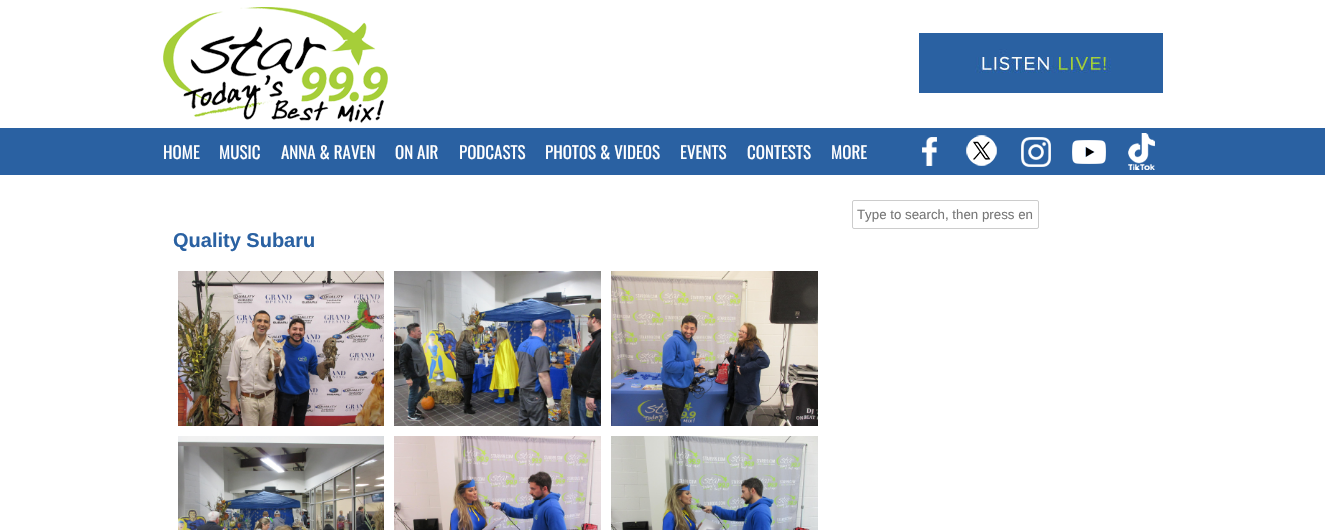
void draw(SkCanvas* canvas) {
    SkPaint paint;
    paint.setAntiAlias(true);
    auto face = [&](const char* family, int weight, float size, bool italic = false) {
        SkFontStyle style(weight, SkFontStyle::kNormal_Width,
            italic ? SkFontStyle::kItalic_Slant : SkFontStyle::kUpright_Slant);
        SkFont result(fontMgr->matchFamilyStyle(family, style), size);
        result.setSubpixel(true);
        return result;
    };
    auto write = [&](const char* s, float x, float y, const SkFont& font, SkColor color) {
        SkPaint ink(SkColor4f::FromColor(color));
        ink.setAntiAlias(true);
        canvas->drawString(s, x, y, font, ink);
    };
    auto block = [&](float x, float y, float w, float h, SkColor color) {
        SkPaint ink(SkColor4f::FromColor(color));
        ink.setAntiAlias(true);
        canvas->drawRect(SkRect::MakeXYWH(x, y, w, h), ink);
    };
    auto paste = [&](const char* path, float x, float y, float w, float h) {
        auto image = SkImages::DeferredFromEncodedData(SkData::MakeFromFileName(path));
        canvas->drawImageRect(image, SkRect::MakeXYWH(x, y, w, h), SkSamplingOptions());
    };
    canvas->clear(SK_ColorWHITE);
    paste("pic1.png", 163, 7, 225, 116);
    paste("pic2.png", 919, 33, 244, 60);
    block(0, 128, 1325, 47, SkColorSetRGB(42, 97, 162));
    auto kFont1 = face("Oswald", 400, 17);
    write("HOME", 163, 159, kFont1, SK_ColorWHITE);
    write("MUSIC", 219, 159, kFont1, SK_ColorWHITE);
    write("ANNA & RAVEN", 281, 159, kFont1, SK_ColorWHITE);
    write("ON AIR", 395, 159, kFont1, SK_ColorWHITE);
    write("PODCASTS", 459, 159, kFont1, SK_ColorWHITE);
    write("PHOTOS & VIDEOS", 545, 159, kFont1, SK_ColorWHITE);
    write("EVENTS", 680, 159, kFont1, SK_ColorWHITE);
    write("CONTESTS", 747, 159, kFont1, SK_ColorWHITE);
    write("MORE", 831, 159, kFont1, SK_ColorWHITE);
    paste("pic3.png", 922, 137, 15, 29);
    paste("pic4.png", 966, 135, 31, 31);
    paste("pic5.png", 1021, 137, 30, 30);
    paste("pic6.png", 1072, 140, 34, 24);
    paste("pic7.png", 1128, 133, 27, 37);
    paint.setStyle(SkPaint::kStroke_Style);
    paint.setStrokeWidth(1);
    paint.setColor(SkColorSetRGB(204, 204, 204));
    canvas->drawRoundRect(SkRect::MakeXYWH(852.5f, 200.5f, 186, 28), 1.5f, 1.5f, paint);
    auto kFont2 = face("Liberation Sans", 400, 13.3f);
    write("Type to search, then press en", 857, 219, kFont2, SkColorSetRGB(119, 119, 119));
    auto kFont3 = face("Liberation Sans", 700, 20);
    write("Quality Subaru", 173, 247, kFont3, SkColorSetRGB(42, 97, 162));
    paste("pic8.png", 178, 271, 206, 155);
    paste("pic9.png", 394, 271, 207, 155);
    paste("pic10.png", 611, 271, 207, 155);
    paste("pic11.png", 178, 436, 206, 94);
    paste("pic12.png", 394, 436, 207, 94);
    paste("pic13.png", 611, 436, 207, 94);
}
